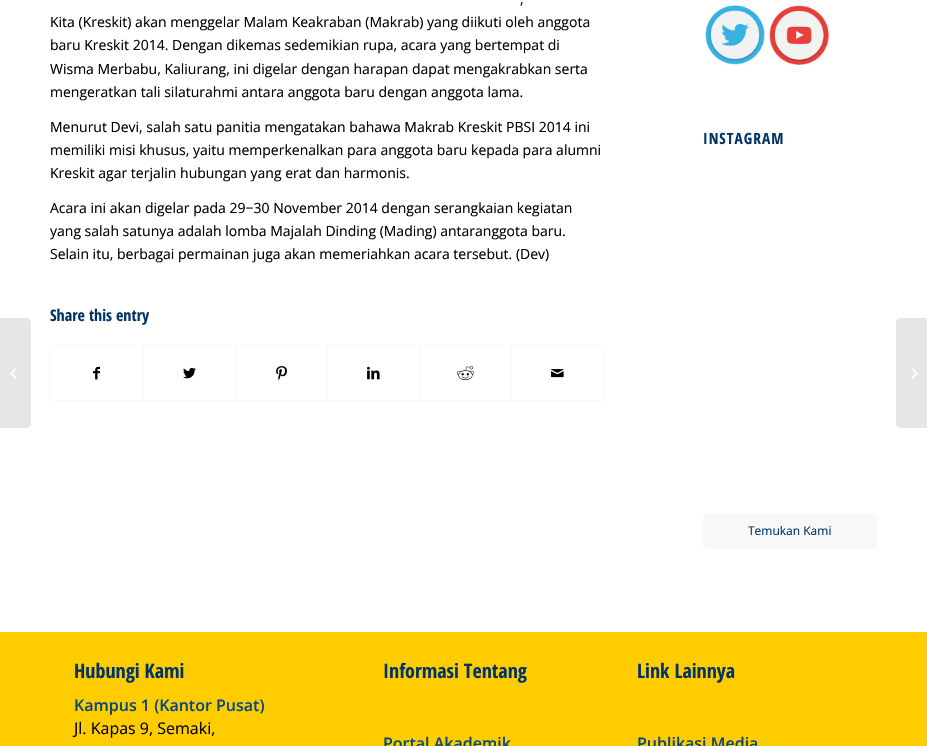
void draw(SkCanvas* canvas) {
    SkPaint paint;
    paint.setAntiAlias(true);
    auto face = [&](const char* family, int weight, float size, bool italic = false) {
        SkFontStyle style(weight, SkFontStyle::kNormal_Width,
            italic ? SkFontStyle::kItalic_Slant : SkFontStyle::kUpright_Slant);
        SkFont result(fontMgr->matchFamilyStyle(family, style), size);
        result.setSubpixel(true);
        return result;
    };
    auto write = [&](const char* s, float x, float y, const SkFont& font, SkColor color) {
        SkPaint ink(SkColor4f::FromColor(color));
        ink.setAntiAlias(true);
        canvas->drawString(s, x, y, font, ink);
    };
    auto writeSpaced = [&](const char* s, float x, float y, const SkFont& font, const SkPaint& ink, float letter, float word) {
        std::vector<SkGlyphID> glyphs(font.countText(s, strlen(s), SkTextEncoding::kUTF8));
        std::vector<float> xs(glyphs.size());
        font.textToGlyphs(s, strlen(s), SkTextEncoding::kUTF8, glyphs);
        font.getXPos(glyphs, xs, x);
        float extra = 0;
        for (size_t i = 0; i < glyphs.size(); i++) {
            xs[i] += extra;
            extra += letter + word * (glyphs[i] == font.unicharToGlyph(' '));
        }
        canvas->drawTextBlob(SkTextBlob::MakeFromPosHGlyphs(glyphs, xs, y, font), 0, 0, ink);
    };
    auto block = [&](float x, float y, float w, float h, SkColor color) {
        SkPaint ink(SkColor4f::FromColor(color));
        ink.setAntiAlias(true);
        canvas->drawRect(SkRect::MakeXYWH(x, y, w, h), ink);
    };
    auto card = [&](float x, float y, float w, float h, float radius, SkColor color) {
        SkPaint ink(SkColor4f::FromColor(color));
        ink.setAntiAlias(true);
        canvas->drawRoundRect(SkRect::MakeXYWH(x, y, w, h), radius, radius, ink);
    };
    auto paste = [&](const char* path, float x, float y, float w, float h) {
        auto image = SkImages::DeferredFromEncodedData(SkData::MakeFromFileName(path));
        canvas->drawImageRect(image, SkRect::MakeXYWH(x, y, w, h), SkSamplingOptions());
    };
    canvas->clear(SK_ColorWHITE);
    paint.setColor(SkColorSetRGB(230, 230, 230));
    canvas->drawPath(SkPathBuilder().moveTo(0, 318).lineTo(27, 318).cubicTo(29, 318, 31, 320, 31, 322).lineTo(31, 424).cubicTo(31, 426, 29, 428, 27, 428).lineTo(0, 428).close().detach(), paint);
    paste("pic1.png", 10, 368, 7, 11);
    auto kFont1 = face("Open Sans", 400, 14);
    write(",", 520, 4, kFont1, SK_ColorBLACK);
    write("Kita (Kreskit) akan menggelar Malam Keakraban (Makrab) yang diikuti oleh anggota", 50, 27, kFont1, SK_ColorBLACK);
    write("baru Kreskit 2014. Dengan dikemas sedemikian rupa, acara yang bertempat di", 50, 50, kFont1, SK_ColorBLACK);
    write("Wisma Merbabu, Kaliurang, ini digelar dengan harapan dapat mengakrabkan serta", 50, 74, kFont1, SK_ColorBLACK);
    write("mengeratkan tali silaturahmi antara anggota baru dengan anggota lama.", 50, 97, kFont1, SK_ColorBLACK);
    write("Menurut Devi, salah satu panitia mengatakan bahawa Makrab Kreskit PBSI 2014 ini", 50, 132, kFont1, SK_ColorBLACK);
    write("memiliki misi khusus, yaitu memperkenalkan para anggota baru kepada para alumni", 50, 155, kFont1, SK_ColorBLACK);
    write("Kreskit agar terjalin hubungan yang erat dan harmonis.", 50, 178, kFont1, SK_ColorBLACK);
    write("Acara ini akan digelar pada 29−30 November 2014 dengan serangkaian kegiatan", 50, 213, kFont1, SK_ColorBLACK);
    write("yang salah satunya adalah lomba Majalah Dinding (Mading) antaranggota baru.", 50, 236, kFont1, SK_ColorBLACK);
    write("Selain itu, berbagai permainan juga akan memeriahkan acara tersebut. (Dev)", 50, 259, kFont1, SK_ColorBLACK);
    auto kFont2 = face("Open Sans Condensed", 700, 16);
    write("Share this entry", 50, 321, kFont2, SkColorSetRGB(0, 51, 102));
    paint.setStyle(SkPaint::kStroke_Style);
    paint.setStrokeWidth(1);
    paint.setColor(SkColorSetRGB(248, 248, 248));
    canvas->drawRoundRect(SkRect::MakeXYWH(50.5f, 345.5f, 553, 55), 2.5f, 2.5f, paint);
    paste("pic2.png", 93, 366, 7, 14);
    block(143, 346, 1, 54, SkColorSetRGB(248, 248, 248));
    paste("pic3.png", 183, 367, 13, 12);
    block(235, 346, 1, 54, SkColorSetRGB(248, 248, 248));
    paste("pic4.png", 276, 366, 11, 14);
    block(327, 346, 1, 54, SkColorSetRGB(248, 248, 248));
    paste("pic5.png", 367, 366, 13, 14);
    block(419, 346, 1, 54, SkColorSetRGB(248, 248, 248));
    paste("pic6.png", 457, 366, 17, 15);
    block(511, 346, 1, 54, SkColorSetRGB(248, 248, 248));
    paste("pic7.png", 551, 369, 13, 9);
    paste("pic8.png", 705, 5, 60, 60);
    paste("pic9.png", 769, 5, 60, 60);
    auto kFont3 = face("Open Sans Condensed", 700, 15.5f);
    paint.setStyle(SkPaint::kFill_Style);
    paint.setColor(SkColorSetRGB(0, 51, 102));
    writeSpaced("INSTAGRAM", 703, 144, kFont3, paint, 1, 0);
    card(703, 514, 174, 35, 3, SkColorSetRGB(248, 248, 248));
    block(875, 548, 1, 1, SkColorSetRGB(248, 248, 248));
    auto kFont4 = face("Open Sans", 400, 12);
    write("Temukan Kami", 748, 535, kFont4, SkColorSetRGB(0, 51, 102));
    block(0, 632, 927, 114, SkColorSetRGB(255, 204, 0));
    auto kFont5 = face("Open Sans Condensed", 700, 20);
    write("Hubungi Kami", 74, 678, kFont5, SkColorSetRGB(0, 51, 102));
    auto kFont6 = face("Open Sans", 600, 16);
    write("Kampus 1 (Kantor Pusat)", 74, 711, kFont6, SkColorSetRGB(8, 74, 121));
    auto kFont7 = face("Open Sans", 400, 16);
    write("Jl. Kapas 9, Semaki,", 74, 734, kFont7, SK_ColorBLACK);
    write("Informasi Tentang", 383, 678, kFont5, SkColorSetRGB(0, 51, 102));
    write("Portal Akademik", 383, 749, kFont6, SkColorSetRGB(8, 74, 121));
    write("Link Lainnya", 637, 678, kFont5, SkColorSetRGB(0, 51, 102));
    write("Publikasi Media", 637, 749, kFont6, SkColorSetRGB(8, 74, 121));
    paint.setColor(SkColorSetRGB(230, 230, 230));
    canvas->drawPath(SkPathBuilder().moveTo(900, 318).lineTo(927, 318).lineTo(927, 428).lineTo(900, 428).cubicTo(898, 428, 896, 426, 896, 424).lineTo(896, 322).cubicTo(896, 320, 898, 318, 900, 318).close().detach(), paint);
    paste("pic10.png", 911, 368, 7, 11);
}
